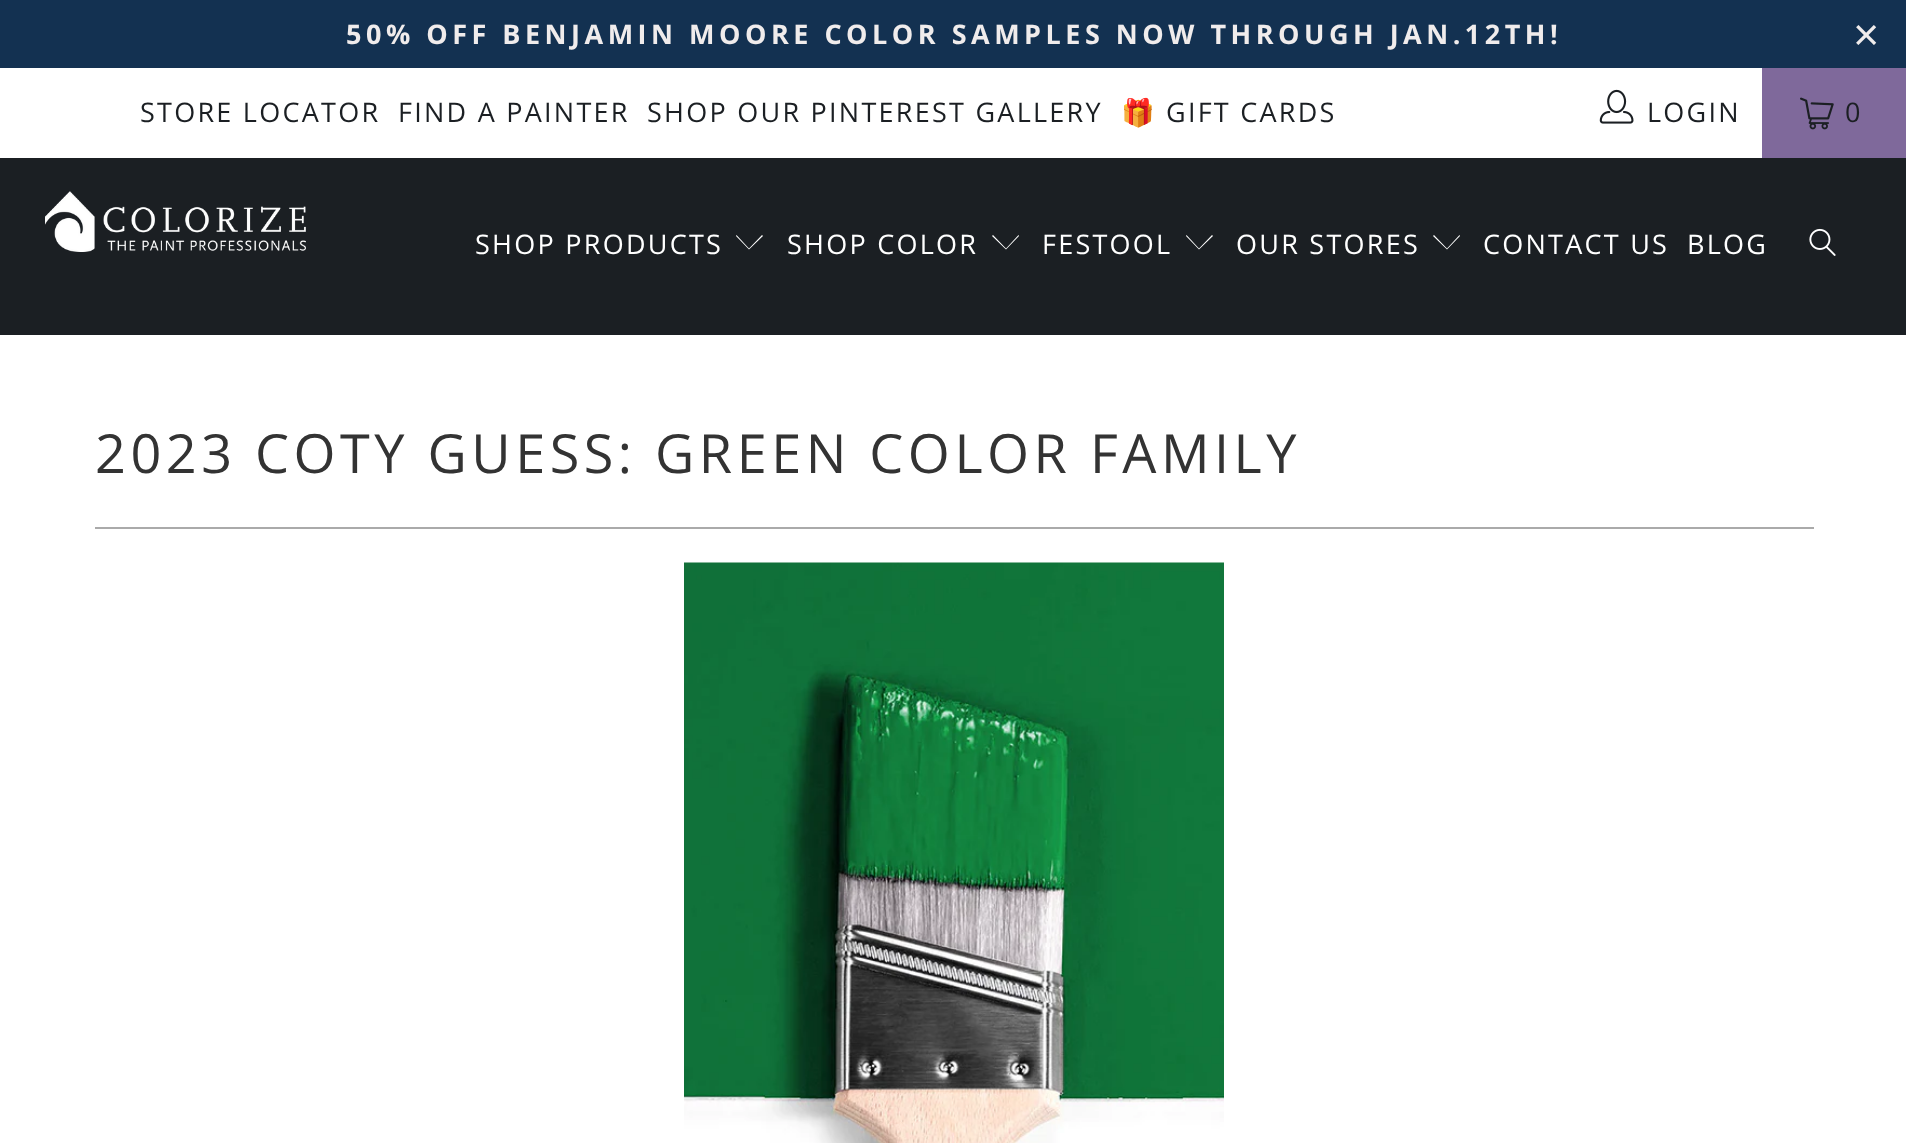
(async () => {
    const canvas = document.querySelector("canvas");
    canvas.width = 1906;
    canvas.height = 1143;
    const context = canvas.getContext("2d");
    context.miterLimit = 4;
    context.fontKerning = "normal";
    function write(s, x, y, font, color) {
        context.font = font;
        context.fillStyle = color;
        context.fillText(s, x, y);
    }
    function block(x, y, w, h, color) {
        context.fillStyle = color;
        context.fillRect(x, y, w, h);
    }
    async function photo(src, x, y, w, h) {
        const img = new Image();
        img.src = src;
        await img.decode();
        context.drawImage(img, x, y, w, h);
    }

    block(0, 0, 1906, 1143, "rgb(255, 255, 255)");
    block(0, 0, 1906, 68, "rgb(19, 49, 81)");
    context.letterSpacing = "4.5px";
    write("50% OFF BENJAMIN MOORE COLOR SAMPLES NOW THROUGH JAN.12TH!", 346, 44, "bold 27px Open Sans", "rgb(240, 236, 236)");
    write("×", 1853, 50, "45px Liberation Sans", "rgb(240, 236, 236)");
    context.letterSpacing = "2.25px";
    write("STORE LOCATOR", 140, 122, "27px Open Sans", "rgb(27, 31, 35)");
    write("FIND A PAINTER", 398, 122, "27px Open Sans", "rgb(27, 31, 35)");
    write("SHOP OUR PINTEREST GALLERY", 647, 122, "27px Open Sans", "rgb(27, 31, 35)");
    write("🎁", 1121, 122, "27px Noto Color Emoji", "rgb(27, 31, 35)");
    write("GIFT CARDS", 1166, 122, "27px Open Sans", "rgb(27, 31, 35)");
    await photo("media/1.png", 1599, 89, 35, 35);
    write("LOGIN", 1647, 122, "27px Open Sans", "rgb(27, 31, 35)");
    block(1762, 68, 144, 90, "rgb(127, 105, 155)");
    await photo("media/2.png", 1800, 97, 34, 33);
    write("0", 1845, 122, "27px Open Sans", "rgb(27, 31, 35)");
    block(0, 158, 1906, 177, "rgb(27, 31, 35)");
    await photo("media/3.png", 45, 191, 261, 61);
    write("SHOP PRODUCTS", 475, 254, "27px Open Sans", "rgb(255, 255, 255)");
    context.beginPath();
    context.moveTo(749, 249.5);
    context.lineTo(736, 236);
    context.lineTo(736.5, 235);
    context.lineTo(749, 248.5);
    context.lineTo(762, 235);
    context.lineTo(763, 236);
    context.closePath();
    context.fill();
    write("SHOP COLOR", 787, 254, "27px Open Sans", "rgb(255, 255, 255)");
    context.beginPath();
    context.moveTo(1006, 249.5);
    context.lineTo(992, 236);
    context.lineTo(993, 235);
    context.lineTo(1006, 248.5);
    context.lineTo(1018.5, 235);
    context.lineTo(1019, 236);
    context.closePath();
    context.fill();
    write("FESTOOL", 1042, 254, "27px Open Sans", "rgb(255, 255, 255)");
    context.beginPath();
    context.moveTo(1199, 249.5);
    context.lineTo(1186, 236);
    context.lineTo(1186.5, 235);
    context.lineTo(1199, 248.5);
    context.lineTo(1212, 235);
    context.lineTo(1213, 236);
    context.closePath();
    context.fill();
    write("OUR STORES", 1236, 254, "27px Open Sans", "rgb(255, 255, 255)");
    context.beginPath();
    context.moveTo(1447, 249.5);
    context.lineTo(1433, 236);
    context.lineTo(1434, 235);
    context.lineTo(1447, 248.5);
    context.lineTo(1459.5, 235);
    context.lineTo(1460, 236);
    context.closePath();
    context.fill();
    write("CONTACT US", 1483, 254, "27px Open Sans", "rgb(255, 255, 255)");
    write("BLOG", 1687, 254, "27px Open Sans", "rgb(255, 255, 255)");
    await photo("media/4.png", 1809, 228, 27, 28);
    context.letterSpacing = "4.5px";
    write("2023 COTY GUESS: GREEN COLOR FAMILY", 95, 473, "54px Open Sans", "rgb(51, 51, 51)");
    block(95, 527, 1719, 2, "rgb(170, 170, 170)");
    await photo("media/5.png", 684, 562, 540, 581);
})();
